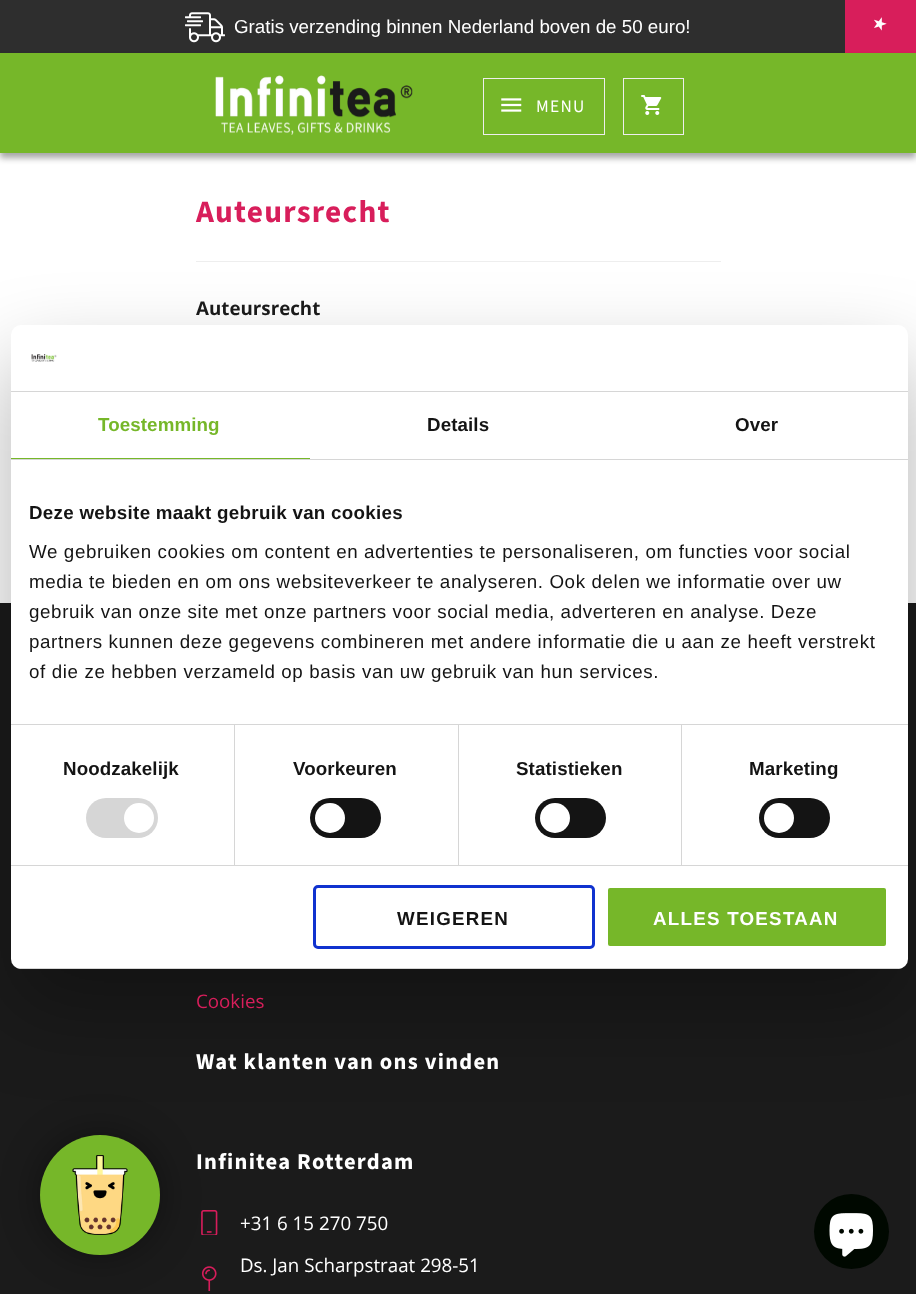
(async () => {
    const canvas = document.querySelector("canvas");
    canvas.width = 916;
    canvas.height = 1294;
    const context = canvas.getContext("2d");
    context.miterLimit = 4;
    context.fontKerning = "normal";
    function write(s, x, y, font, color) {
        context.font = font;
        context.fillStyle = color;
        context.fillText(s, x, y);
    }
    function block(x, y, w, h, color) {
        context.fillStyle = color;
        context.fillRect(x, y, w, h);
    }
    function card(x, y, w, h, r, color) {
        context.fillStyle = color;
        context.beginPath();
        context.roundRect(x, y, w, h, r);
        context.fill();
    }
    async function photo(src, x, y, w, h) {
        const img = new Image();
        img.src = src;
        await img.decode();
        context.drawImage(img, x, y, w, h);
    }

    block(0, 0, 916, 1294, "rgb(255, 255, 255)");
    block(0, 0, 845, 53, "rgb(46, 46, 46)");
    await photo("media/1.png", 185, 12, 40, 31);
    write("Gratis verzending binnen Nederland boven de 50 euro!", 234, 33, "18.75px Liberation Sans", "rgb(255, 255, 255)");
    block(845, 0, 71, 53, "rgb(216, 30, 91)");
    context.font = "17.5px DejaVu Sans";
    context.fillStyle = "rgb(255, 255, 255)";
    context.save();
    context.translate(874, 16);
    context.rotate(90 * Math.PI / 180);
    context.fillText("★", 0, 0);
    context.restore();
    block(0, 53, 916, 100, "rgb(118, 183, 41)");
    context.save();
    context.beginPath();
    context.moveTo(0, 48);
    context.lineTo(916, 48);
    context.lineTo(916, 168);
    context.lineTo(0, 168);
    context.closePath();
    context.moveTo(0, 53);
    context.lineTo(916, 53);
    context.lineTo(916, 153);
    context.lineTo(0, 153);
    context.closePath();
    context.clip("evenodd");
    context.fillStyle = "rgba(0, 0, 0, 0.35)";
    context.filter = "blur(3px)";
    context.beginPath();
    context.rect(0, 58, 916, 100);
    context.fill();
    context.filter = "none";
    context.restore();
    await photo("media/2.png", 215, 75, 198, 60);
    context.strokeStyle = "rgb(238, 238, 238)";
    context.strokeRect(483.5, 78.5, 121, 56);
    await photo("media/3.png", 501, 98, 21, 14);
    context.letterSpacing = "1.25px";
    write("MENU", 536, 112, "17.5px Source Sans Pro", "rgb(255, 255, 255)");
    context.strokeRect(623.5, 78.5, 60, 56);
    await photo("media/4.png", 641, 95, 21, 20);
    block(196, 261, 525, 1, "rgb(238, 238, 238)");
    write("Auteursrecht", 196, 222, "bold 31.25px Source Sans Pro", "rgb(216, 30, 91)");
    context.letterSpacing = "0px";
    write("Auteursrecht", 196, 315, "bold 18.75px Open Sans", "rgb(27, 27, 27)");
    block(0, 603, 916, 691, "rgb(27, 27, 27)");
    await photo("media/7.png", 201, 1210, 17, 25);
    await photo("media/8.png", 201, 1266, 16, 25);
    context.fillStyle = "rgba(0, 0, 0, 0.39)";
    context.filter = "blur(19px)";
    context.beginPath();
    context.roundRect(40, 1135, 120, 120, 60);
    context.fill();
    context.filter = "none";
    context.fillStyle = "rgb(118, 183, 41)";
    context.beginPath();
    context.arc(100, 1195, 60, 0, Math.PI * 2);
    context.fill();
    context.fillStyle = "rgba(0, 0, 0, 0.3)";
    context.filter = "blur(42.5px)";
    context.beginPath();
    context.roundRect(11, 365, 897, 644, 10);
    context.fill();
    context.filter = "none";
    card(11, 325, 897, 644, 10, "rgb(255, 255, 255)");
    block(11, 391, 897, 1, "rgb(214, 214, 214)");
    await photo("media/5.png", 31, 354, 26, 8);
    block(11, 459, 897, 1, "rgb(214, 214, 214)");
    block(11, 458, 299, 1, "rgb(118, 183, 41)");
    context.letterSpacing = "0.1px";
    write("Toestemming", 98, 431, "bold 18.75px Liberation Sans", "rgb(118, 183, 41)");
    write("Details", 427, 431, "bold 18.75px Liberation Sans", "rgb(20, 20, 20)");
    write("Over", 735, 431, "bold 18.75px Liberation Sans", "rgb(20, 20, 20)");
    block(11, 724, 897, 1, "rgb(214, 214, 214)");
    context.letterSpacing = "0.3px";
    write("Deze website maakt gebruik van cookies", 29, 519, "bold 18.75px Liberation Sans", "rgb(20, 20, 20)");
    context.letterSpacing = "0.62px";
    write("We gebruiken cookies om content en advertenties te personaliseren, om functies voor social", 29, 558, "18.75px Liberation Sans", "rgb(20, 20, 20)");
    write("media te bieden en om ons websiteverkeer te analyseren. Ook delen we informatie over uw", 29, 588, "18.75px Liberation Sans", "rgb(20, 20, 20)");
    write("gebruik van onze site met onze partners voor social media, adverteren en analyse. Deze", 29, 618, "18.75px Liberation Sans", "rgb(20, 20, 20)");
    write("partners kunnen deze gegevens combineren met andere informatie die u aan ze heeft verstrekt", 29, 648, "18.75px Liberation Sans", "rgb(20, 20, 20)");
    write("of die ze hebben verzameld op basis van uw gebruik van hun services.", 29, 678, "18.75px Liberation Sans", "rgb(20, 20, 20)");
    block(11, 865, 897, 1, "rgb(214, 214, 214)");
    block(234, 725, 1, 140, "rgb(214, 214, 214)");
    context.letterSpacing = "0.1px";
    write("Noodzakelijk", 63, 775, "bold 18.75px Liberation Sans", "rgb(20, 20, 20)");
    card(86, 798, 72, 40, 20, "rgb(214, 214, 214)");
    context.fillStyle = "rgb(255, 255, 255)";
    context.beginPath();
    context.arc(139, 818, 15, 0, Math.PI * 2);
    context.fill();
    block(458, 725, 1, 140, "rgb(214, 214, 214)");
    write("Voorkeuren", 293, 775, "bold 18.75px Liberation Sans", "rgb(20, 20, 20)");
    card(310, 798, 71, 40, 20, "rgb(20, 20, 20)");
    context.fillStyle = "rgb(255, 255, 255)";
    context.beginPath();
    context.arc(330, 818, 15, 0, Math.PI * 2);
    context.fill();
    block(681, 725, 1, 140, "rgb(214, 214, 214)");
    write("Statistieken", 516, 775, "bold 18.75px Liberation Sans", "rgb(20, 20, 20)");
    card(535, 798, 71, 40, 20, "rgb(20, 20, 20)");
    context.fillStyle = "rgb(255, 255, 255)";
    context.beginPath();
    context.arc(555, 818, 15, 0, Math.PI * 2);
    context.fill();
    write("Marketing", 749, 775, "bold 18.75px Liberation Sans", "rgb(20, 20, 20)");
    card(759, 798, 71, 40, 20, "rgb(20, 20, 20)");
    context.fillStyle = "rgb(255, 255, 255)";
    context.beginPath();
    context.arc(779, 818, 15, 0, Math.PI * 2);
    context.fill();
    context.save();
    context.beginPath();
    context.roundRect(11, 325, 897, 644, 10);
    context.clip();
    block(11, 968, 897, 1, "rgb(214, 214, 214)");
    context.restore();
    context.beginPath();
    context.roundRect(314.5, 886.5, 279, 61, 3.5);
    context.strokeStyle = "rgb(16, 50, 207)";
    context.lineWidth = 3;
    context.stroke();
    context.letterSpacing = "1.25px";
    write("WEIGEREN", 397, 925, "bold 18.75px Liberation Sans", "rgb(20, 20, 20)");
    context.fillStyle = "rgb(118, 183, 41)";
    context.beginPath();
    context.roundRect(606.5, 886.5, 281, 61, 3.5);
    context.fill();
    context.strokeStyle = "rgb(255, 255, 255)";
    context.stroke();
    write("ALLES TOESTAAN", 653, 925, "bold 18.75px Liberation Sans", "rgb(255, 255, 255)");
    await photo("media/6.png", 72, 1155, 56, 80);
    context.letterSpacing = "0px";
    write("Cookies", 196, 1008, "18.75px Open Sans", "rgb(216, 30, 91)");
    context.letterSpacing = "1.25px";
    write("Wat klanten van ons vinden", 196, 1069, "bold 22.5px Source Sans Pro", "rgb(255, 255, 255)");
    write("Infinitea Rotterdam", 196, 1169, "bold 22.5px Source Sans Pro", "rgb(255, 255, 255)");
    context.letterSpacing = "0px";
    write("+31 6 15 270 750", 240, 1230, "18.75px Open Sans", "rgb(255, 255, 255)");
    write("Ds. Jan Scharpstraat 298-51", 240, 1272, "18.75px Open Sans", "rgb(255, 255, 255)");
    context.fillStyle = "rgb(0, 8, 0)";
    context.beginPath();
    context.arc(851.5, 1231.5, 37.5, 0, Math.PI * 2);
    context.fill();
    await photo("media/9.png", 829, 1213, 44, 44);
})();
